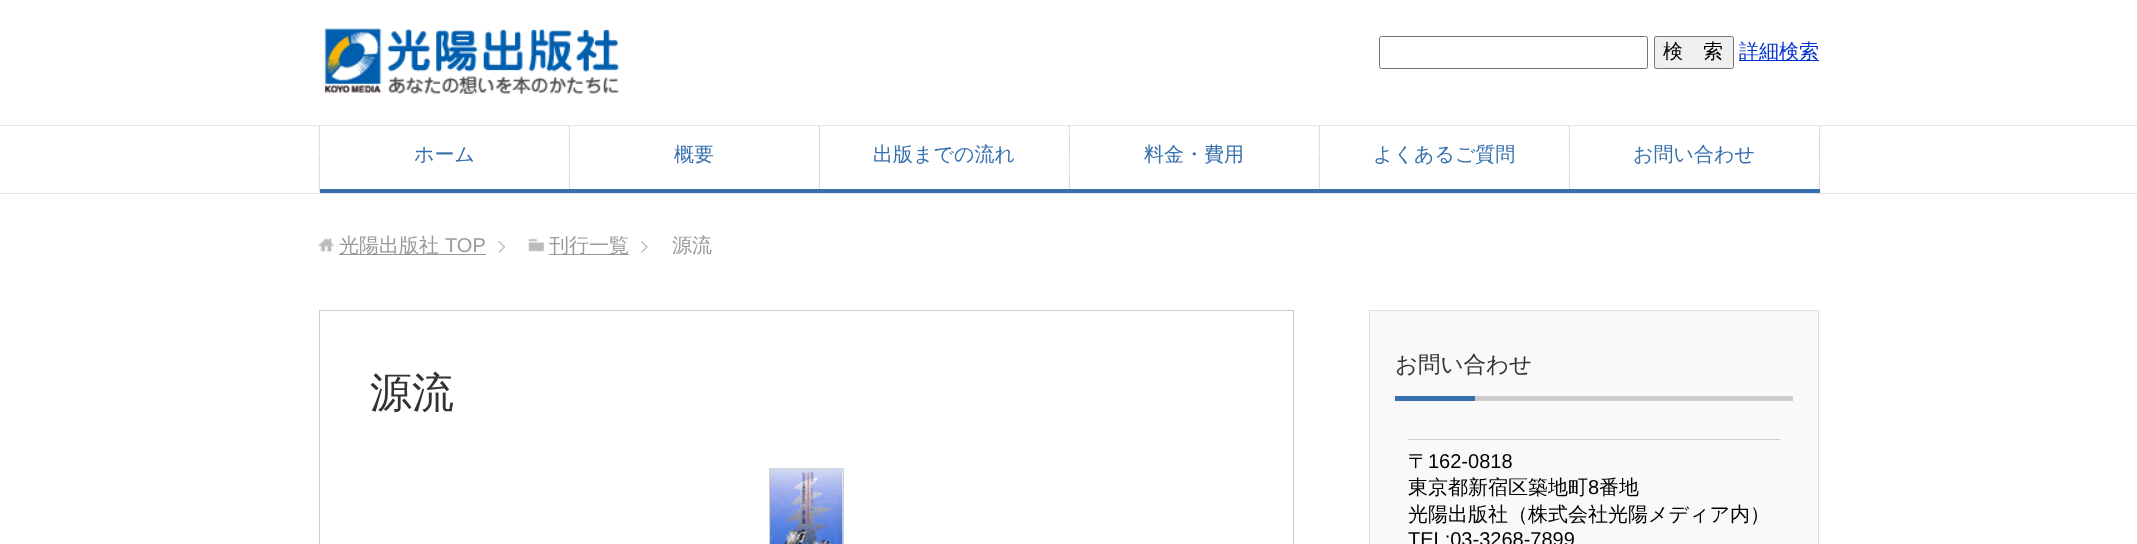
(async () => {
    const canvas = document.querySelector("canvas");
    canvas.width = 2137;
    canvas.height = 544;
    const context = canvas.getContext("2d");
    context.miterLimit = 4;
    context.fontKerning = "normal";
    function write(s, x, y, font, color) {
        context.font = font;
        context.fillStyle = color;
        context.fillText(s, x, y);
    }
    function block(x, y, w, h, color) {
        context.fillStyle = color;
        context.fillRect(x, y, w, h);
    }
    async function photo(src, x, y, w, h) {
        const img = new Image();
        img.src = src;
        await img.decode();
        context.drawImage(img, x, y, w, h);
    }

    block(0, 0, 2137, 544, "rgb(255, 255, 255)");
    await photo("media/1.png", 324, 28, 295, 67);
    context.beginPath();
    context.roundRect(1379.5, 36.5, 268, 32, 2);
    context.strokeStyle = "rgb(118, 118, 118)";
    context.stroke();
    context.fillStyle = "rgb(239, 239, 239)";
    context.beginPath();
    context.roundRect(1654.5, 36.5, 79, 32, 2);
    context.fill();
    context.stroke();
    write("検　索", 1663, 58, "500 20px WenQuanYi Zen Hei", "rgb(0, 0, 0)");
    block(1739, 60, 80, 1, "rgb(0, 51, 204)");
    write("詳細検索", 1739, 58, "500 20px WenQuanYi Zen Hei", "rgb(0, 51, 204)");
    block(0, 125, 2137, 1, "rgb(230, 230, 230)");
    block(0, 193, 2137, 1, "rgb(230, 230, 230)");
    context.beginPath();
    context.moveTo(319.5, 126);
    context.lineTo(319.5, 192.5);
    context.strokeStyle = "rgb(188, 188, 188)";
    context.lineWidth = 1.2;
    context.setLineDash([1.25, 1.25]);
    context.stroke();
    block(320, 189, 1500, 4, "rgb(55, 112, 173)");
    block(320, 126, 1, 63, "rgb(255, 255, 255)");
    context.beginPath();
    context.moveTo(569.5, 126);
    context.lineTo(569.5, 189);
    context.stroke();
    write("ホーム", 414, 161, "500 20px WenQuanYi Zen Hei", "rgb(55, 112, 173)");
    block(570, 126, 1, 63, "rgb(255, 255, 255)");
    context.beginPath();
    context.moveTo(819.5, 126);
    context.lineTo(819.5, 189);
    context.stroke();
    write("概要", 674, 161, "500 20px WenQuanYi Zen Hei", "rgb(55, 112, 173)");
    block(820, 126, 1, 63, "rgb(255, 255, 255)");
    context.beginPath();
    context.moveTo(1069.5, 126);
    context.lineTo(1069.5, 189);
    context.stroke();
    write("出版までの流れ", 873, 161, "500 20px WenQuanYi Zen Hei", "rgb(55, 112, 173)");
    block(1070, 126, 1, 63, "rgb(255, 255, 255)");
    context.beginPath();
    context.moveTo(1319.5, 126);
    context.lineTo(1319.5, 189);
    context.stroke();
    write("料金・費用", 1144, 161, "500 20px WenQuanYi Zen Hei", "rgb(55, 112, 173)");
    block(1320, 126, 1, 63, "rgb(255, 255, 255)");
    context.beginPath();
    context.moveTo(1569.5, 126);
    context.lineTo(1569.5, 189);
    context.stroke();
    write("よくあるご質問", 1373, 161, "500 20px WenQuanYi Zen Hei", "rgb(55, 112, 173)");
    block(1570, 126, 1, 63, "rgb(255, 255, 255)");
    context.beginPath();
    context.moveTo(1819.5, 126);
    context.lineTo(1819.5, 189);
    context.stroke();
    write("お問い合わせ", 1633, 161, "500 20px WenQuanYi Zen Hei", "rgb(55, 112, 173)");
    await photo("media/2.png", 498, 241, 7, 12);
    await photo("media/3.png", 318, 238, 16, 14);
    block(339, 254, 147, 1, "rgb(153, 153, 153)");
    write("光陽出版社", 339, 252, "500 20px WenQuanYi Zen Hei", "rgb(153, 153, 153)");
    write("TOP", 445, 252, "20px Liberation Sans", "rgb(153, 153, 153)");
    await photo("media/4.png", 641, 241, 7, 12);
    await photo("media/5.png", 528, 238, 16, 14);
    block(549, 254, 80, 1, "rgb(153, 153, 153)");
    write("刊行一覧", 549, 252, "500 20px WenQuanYi Zen Hei", "rgb(153, 153, 153)");
    write("源流", 672, 252, "500 20px WenQuanYi Zen Hei", "rgb(153, 153, 153)");
    context.strokeStyle = "rgb(204, 204, 204)";
    context.lineWidth = 1;
    context.setLineDash([]);
    context.strokeRect(319.5, 310.5, 974, 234);
    write("源流", 370, 407, "500 42px WenQuanYi Zen Hei", "rgb(51, 51, 51)");
    context.strokeStyle = "rgb(208, 208, 208)";
    context.strokeRect(769.5, 468.5, 74, 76);
    await photo("media/6.png", 770, 468, 73, 76);
    context.fillStyle = "rgb(249, 249, 249)";
    context.beginPath();
    context.rect(1369.5, 310.5, 449, 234);
    context.fill();
    context.strokeStyle = "rgb(221, 221, 221)";
    context.stroke();
    block(1475, 396, 318, 5, "rgb(204, 204, 204)");
    write("お問い合わせ", 1395, 372, "500 22.5px WenQuanYi Zen Hei", "rgb(51, 51, 51)");
    block(1395, 396, 80, 5, "rgb(55, 112, 173)");
    block(1408, 439, 372, 1, "rgb(204, 204, 204)");
    write("〒", 1408, 468, "500 20px WenQuanYi Zen Hei", "rgb(0, 0, 0)");
    write("162-0818", 1428, 468, "20px Liberation Sans", "rgb(0, 0, 0)");
    write("東京都新宿区築地町", 1408, 494, "500 20px WenQuanYi Zen Hei", "rgb(0, 0, 0)");
    write("8", 1588, 494, "20px Liberation Sans", "rgb(0, 0, 0)");
    write("番地", 1599, 494, "500 20px WenQuanYi Zen Hei", "rgb(0, 0, 0)");
    write("光陽出版社（株式会社光陽メディア内）", 1408, 521, "500 20px WenQuanYi Zen Hei", "rgb(0, 0, 0)");
    write("TEL:03-3268-7899", 1408, 546, "20px Liberation Sans", "rgb(0, 0, 0)");
})();
